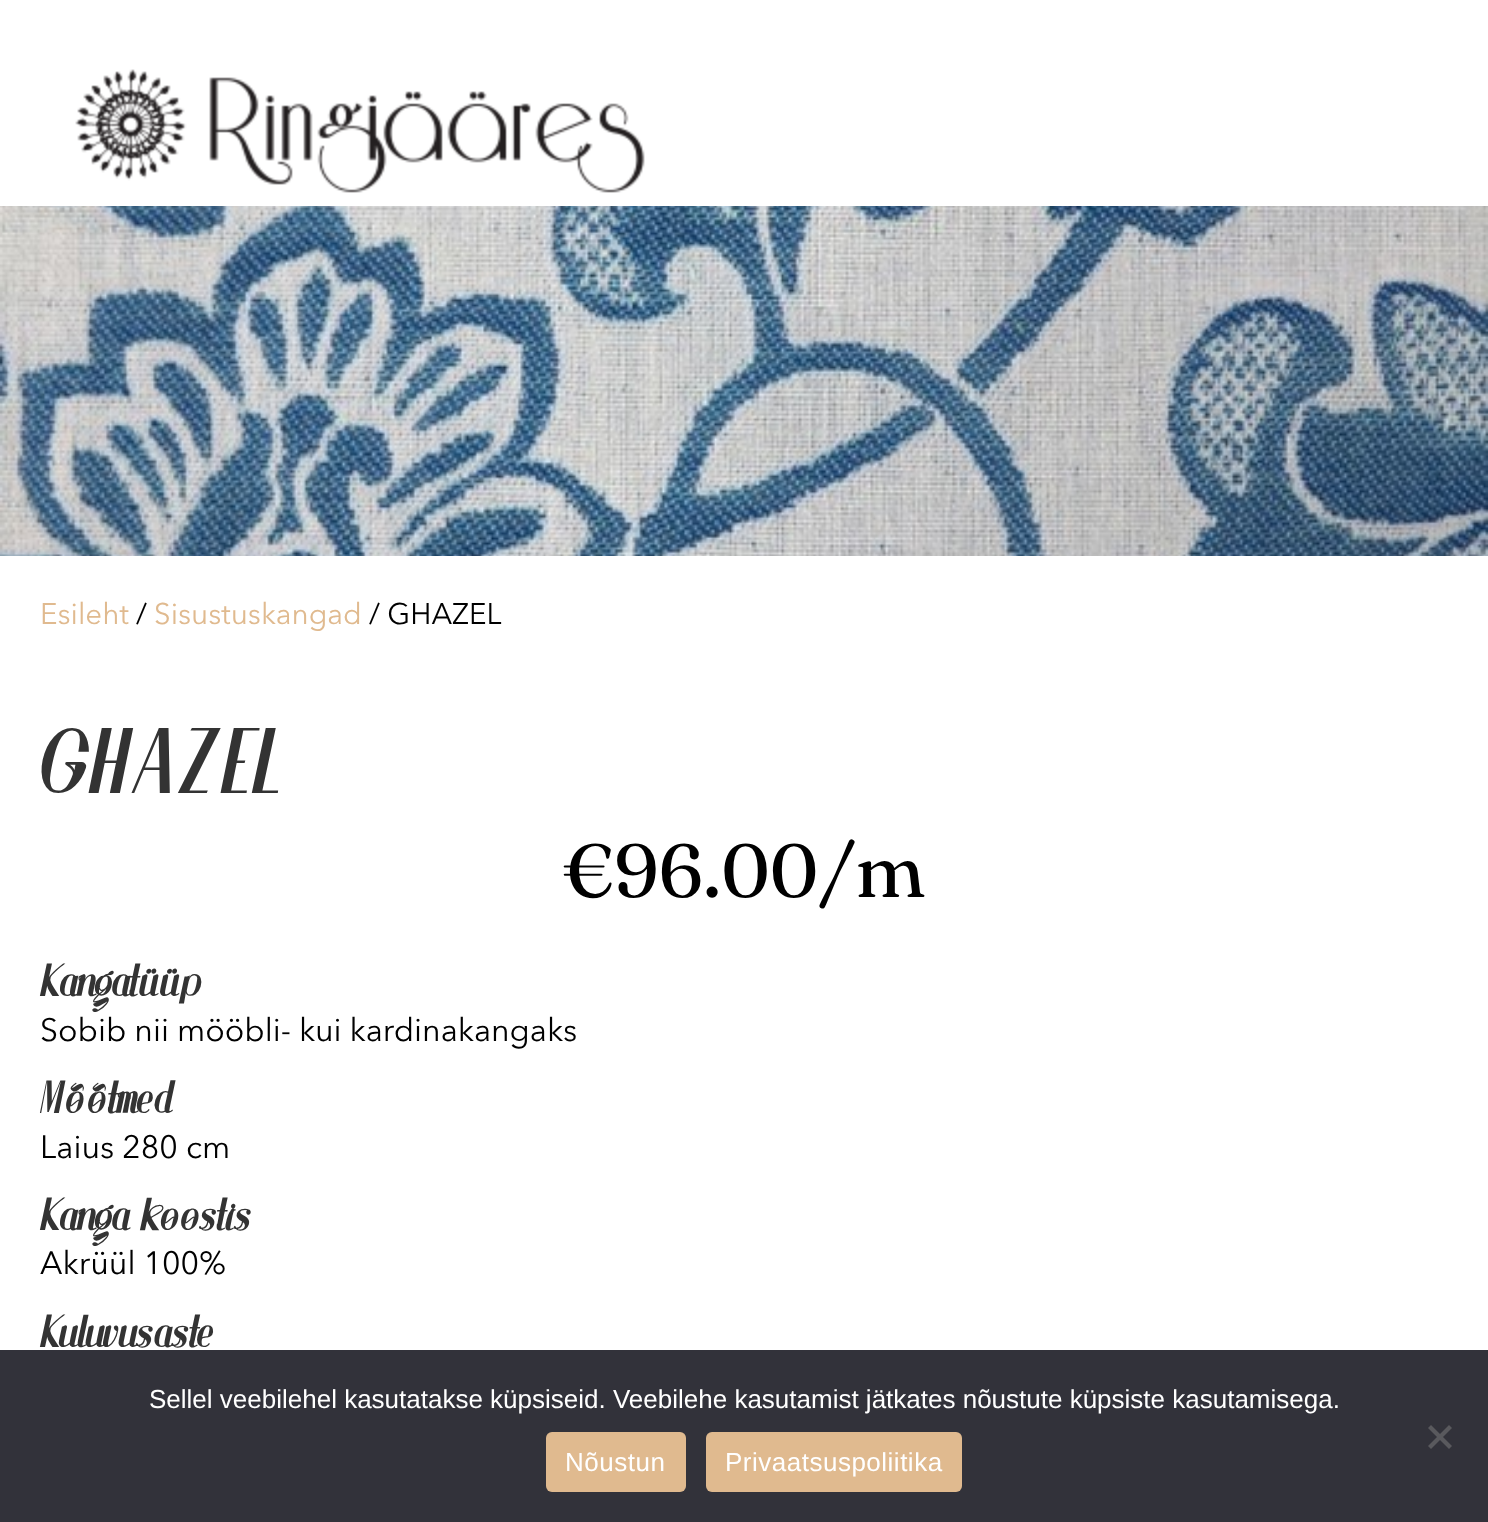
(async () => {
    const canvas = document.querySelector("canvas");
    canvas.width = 1488;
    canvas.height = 1522;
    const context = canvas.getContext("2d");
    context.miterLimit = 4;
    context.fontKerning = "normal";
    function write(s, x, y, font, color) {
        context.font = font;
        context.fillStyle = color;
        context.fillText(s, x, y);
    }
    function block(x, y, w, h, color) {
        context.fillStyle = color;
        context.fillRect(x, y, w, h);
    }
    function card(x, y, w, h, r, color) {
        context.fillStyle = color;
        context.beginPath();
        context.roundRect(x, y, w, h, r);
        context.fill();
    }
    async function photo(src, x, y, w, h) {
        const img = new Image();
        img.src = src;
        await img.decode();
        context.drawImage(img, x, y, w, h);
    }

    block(0, 0, 1488, 1522, "rgb(255, 255, 255)");
    await photo("media/1.png", 75, 69, 570, 124);
    await photo("media/2.png", 0, 206, 1488, 350);
    write("Esileht", 40, 624, "29.5px Avenir Next", "rgb(224, 186, 143)");
    write("/", 136, 624, "29.5px Avenir Next", "rgb(0, 0, 0)");
    write("Sisustuskangad", 154, 624, "29.5px Avenir Next", "rgb(224, 186, 143)");
    write("/ GHAZEL", 369, 624, "29.5px Avenir Next", "rgb(0, 0, 0)");
    context.letterSpacing = "4px";
    write("GHAZEL", 40, 793, "bold 72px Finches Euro", "rgb(51, 51, 51)");
    context.letterSpacing = "0px";
    write("€96.00/m", 562, 897, "75px Fraunces", "rgb(0, 0, 0)");
    context.letterSpacing = "2px";
    write("Kangatüüp", 40, 996, "bold 36px Finches Euro", "rgb(51, 51, 51)");
    context.letterSpacing = "0px";
    write("Sobib nii mööbli- kui kardinakangaks", 40, 1041, "32px Avenir Next", "rgb(0, 0, 0)");
    context.letterSpacing = "2px";
    write("Mõõtmed", 40, 1113, "bold 36px Finches Euro", "rgb(51, 51, 51)");
    context.letterSpacing = "0px";
    write("Laius 280 cm", 40, 1158, "32px Avenir Next", "rgb(0, 0, 0)");
    context.letterSpacing = "2px";
    write("Kanga koostis", 40, 1230, "bold 36px Finches Euro", "rgb(51, 51, 51)");
    context.letterSpacing = "0px";
    write("Akrüül 100%", 40, 1274, "32px Avenir Next", "rgb(0, 0, 0)");
    context.letterSpacing = "2px";
    write("Kuluvusaste", 40, 1347, "bold 36px Finches Euro", "rgb(51, 51, 51)");
    block(0, 1350, 1488, 172, "rgb(50, 50, 58)");
    context.letterSpacing = "0px";
    write("Sellel veebilehel kasutatakse küpsiseid. Veebilehe kasutamist jätkates nõustute küpsiste kasutamisega.", 149, 1408, "26px Liberation Sans", "rgb(255, 255, 255)");
    context.fillStyle = "rgb(89, 89, 93)";
    context.beginPath();
    context.moveTo(1449, 1425);
    context.lineTo(1452, 1428);
    context.lineTo(1431, 1449);
    context.lineTo(1428, 1446);
    context.closePath();
    context.fill();
    context.beginPath();
    context.moveTo(1428, 1428);
    context.lineTo(1431, 1425);
    context.lineTo(1452, 1446);
    context.lineTo(1449, 1449);
    context.closePath();
    context.fill();
    card(546, 1432, 140, 60, 6, "rgb(224, 186, 143)");
    context.letterSpacing = "0.5px";
    write("Nõustun", 565, 1471, "26px Liberation Sans", "rgb(255, 255, 255)");
    card(706, 1432, 256, 60, 6, "rgb(224, 186, 143)");
    write("Privaatsuspoliitika", 725, 1471, "26px Liberation Sans", "rgb(255, 255, 255)");
})();
